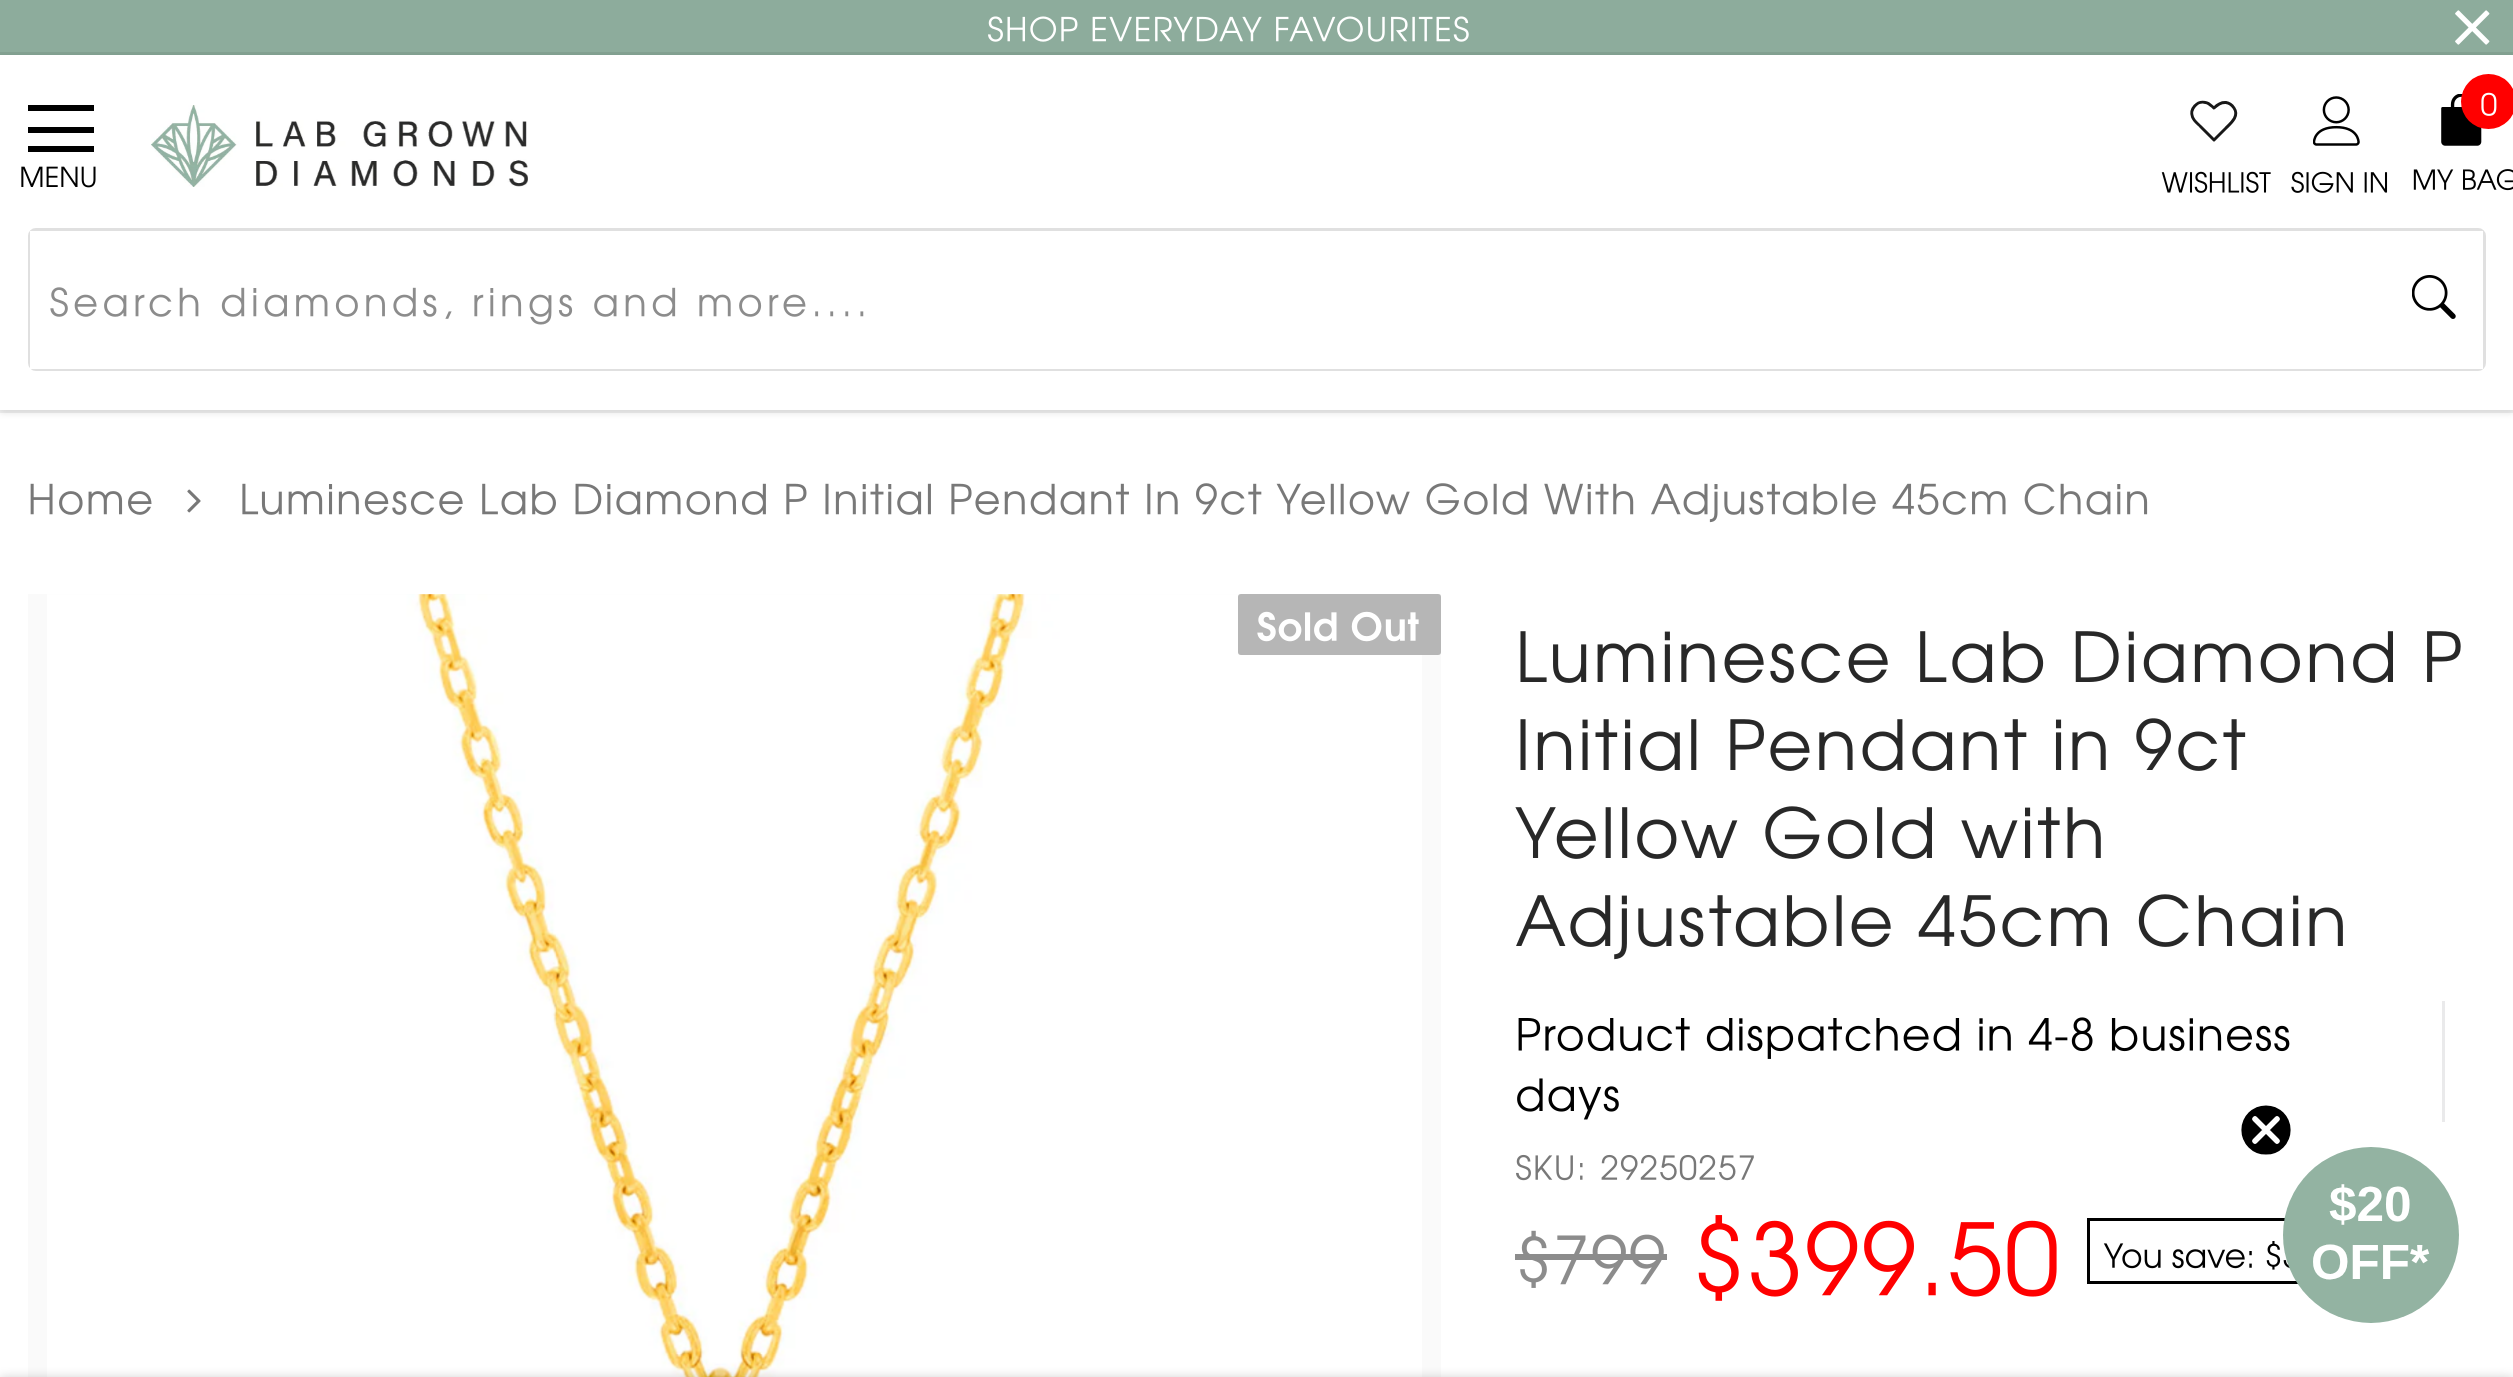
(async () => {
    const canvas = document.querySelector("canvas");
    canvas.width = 2513;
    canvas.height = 1377;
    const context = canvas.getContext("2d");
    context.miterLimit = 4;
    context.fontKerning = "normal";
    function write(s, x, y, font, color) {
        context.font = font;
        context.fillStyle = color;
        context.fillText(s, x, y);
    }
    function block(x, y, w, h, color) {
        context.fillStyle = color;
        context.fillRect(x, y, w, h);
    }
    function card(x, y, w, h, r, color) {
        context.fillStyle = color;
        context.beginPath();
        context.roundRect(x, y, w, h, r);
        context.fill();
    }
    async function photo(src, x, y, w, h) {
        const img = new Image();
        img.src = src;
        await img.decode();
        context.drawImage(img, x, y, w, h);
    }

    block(0, 0, 2513, 1377, "rgb(255, 255, 255)");
    block(0, 0, 2513, 55, "rgb(141, 172, 156)");
    await photo("media/1.png", 988, 16, 481, 26);
    await photo("media/2.png", 2455, 10, 35, 35);
    context.fillStyle = "rgba(0, 0, 0, 0.1)";
    context.filter = "blur(3px)";
    context.beginPath();
    context.rect(0, 58, 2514, 355);
    context.fill();
    context.filter = "none";
    context.strokeStyle = "rgba(0, 0, 0, 0.06)";
    context.lineWidth = 3;
    context.strokeRect(-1.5, 53.5, 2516, 358);
    block(0, 55, 2513, 355, "rgb(255, 255, 255)");
    block(28, 105, 66, 6, "rgb(0, 0, 0)");
    block(28, 127, 66, 6, "rgb(0, 0, 0)");
    block(28, 146, 66, 6, "rgb(0, 0, 0)");
    await photo("media/3.png", 21, 166, 75, 22);
    await photo("media/4.png", 151, 105, 377, 82);
    context.beginPath();
    context.moveTo(2214, 108);
    context.bezierCurveTo(2217, 105, 2220.5, 102, 2226, 102.5);
    context.bezierCurveTo(2229, 103, 2232, 105, 2234, 108);
    context.bezierCurveTo(2239.5, 116, 2231, 123, 2226, 128);
    context.lineTo(2214, 140);
    context.lineTo(2200.5, 126.5);
    context.bezierCurveTo(2197.5, 123.5, 2194, 121, 2192.5, 117);
    context.bezierCurveTo(2189.5, 109, 2197, 100.5, 2205.5, 102.5);
    context.bezierCurveTo(2209, 103, 2211.5, 106, 2214, 108);
    context.closePath();
    context.strokeStyle = "rgb(24, 24, 24)";
    context.lineWidth = 2.9;
    context.lineCap = "round";
    context.lineJoin = "round";
    context.stroke();
    await photo("media/5.png", 2161, 171, 110, 22);
    await photo("media/6.png", 2313, 96, 47, 50);
    await photo("media/7.png", 2291, 171, 97, 22);
    await photo("media/9.png", 2441, 94, 41, 52);
    context.fillStyle = "rgb(255, 0, 0)";
    context.beginPath();
    context.arc(2488.5, 101.5, 27.5, 0, Math.PI * 2);
    context.fill();
    await photo("media/8.png", 2481, 92, 16, 24);
    await photo("media/10.png", 2413, 169, 100, 22);
    context.beginPath();
    context.roundRect(29.5, 229.5, 2455, 140, 6.5);
    context.strokeStyle = "rgb(224, 224, 224)";
    context.lineWidth = 3;
    context.lineJoin = "miter";
    context.stroke();
    block(30, 231, 2453, 138, "rgb(255, 255, 255)");
    await photo("media/11.png", 50, 287, 814, 38);
    await photo("media/12.png", 2412, 275, 44, 44);
    await photo("media/13.png", 30, 483, 122, 32);
    await photo("media/14.png", 187, 489, 14, 24);
    await photo("media/15.png", 242, 483, 1906, 40);
    block(28, 594, 1413, 783, "rgb(250, 250, 250)");
    await photo("media/16.png", 47, 594, 1375, 783);
    card(1238, 594, 203, 61, 3, "rgb(182, 182, 182)");
    await photo("media/17.png", 1257, 611, 162, 31);
    await photo("media/18.png", 1520, 631, 941, 52);
    await photo("media/19.png", 1520, 718, 726, 53);
    await photo("media/20.png", 1515, 806, 586, 53);
    await photo("media/21.png", 1516, 894, 827, 66);
    block(2442, 1001, 3, 121, "rgb(234, 234, 235)");
    await photo("media/22.png", 1518, 1017, 772, 42);
    await photo("media/23.png", 1517, 1078, 102, 42);
    await photo("media/24.png", 1516, 1154, 67, 27);
    await photo("media/25.png", 1601, 1154, 153, 27);
    await photo("media/26.png", 1520, 1230, 144, 58);
    block(1515, 1254, 152, 6, "rgb(140, 140, 140)");
    await photo("media/27.png", 1698, 1215, 359, 86);
    context.strokeStyle = "rgb(0, 0, 0)";
    context.strokeRect(2088.5, 1219.5, 311, 63);
    await photo("media/28.png", 2103, 1241, 187, 29);
    context.fillStyle = "rgba(0, 0, 0, 0.2)";
    context.filter = "blur(5.5px)";
    context.beginPath();
    context.rect(0, 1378, 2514, 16);
    context.fill();
    context.filter = "none";
    context.fillStyle = "rgb(147, 179, 162)";
    context.beginPath();
    context.arc(2371, 1235, 88, 0, Math.PI * 2);
    context.fill();
    context.fillStyle = "rgb(0, 0, 0)";
    context.beginPath();
    context.arc(2266, 1130, 26, 0, Math.PI * 2);
    context.fill();
    context.save();
    context.beginPath();
    context.rect(2239, 1103, 55, 55);
    context.clip();
    context.beginPath();
    context.arc(2266, 1130, 26, 0, Math.PI * 2);
    context.strokeStyle = "rgb(255, 255, 255)";
    context.lineWidth = 2.8;
    context.stroke();
    context.restore();
    context.beginPath();
    context.moveTo(2255, 1119);
    context.lineTo(2277, 1141);
    context.moveTo(2255, 1141);
    context.lineTo(2277, 1119);
    context.closePath();
    context.strokeStyle = "rgb(255, 255, 255)";
    context.lineWidth = 5.5;
    context.lineJoin = "round";
    context.stroke();
    write("$20", 2329, 1221, "bold 49.5px Liberation Sans", "rgb(255, 255, 255)");
    write("OFF*", 2311, 1279, "bold 49.5px Liberation Sans", "rgb(255, 255, 255)");
})();
